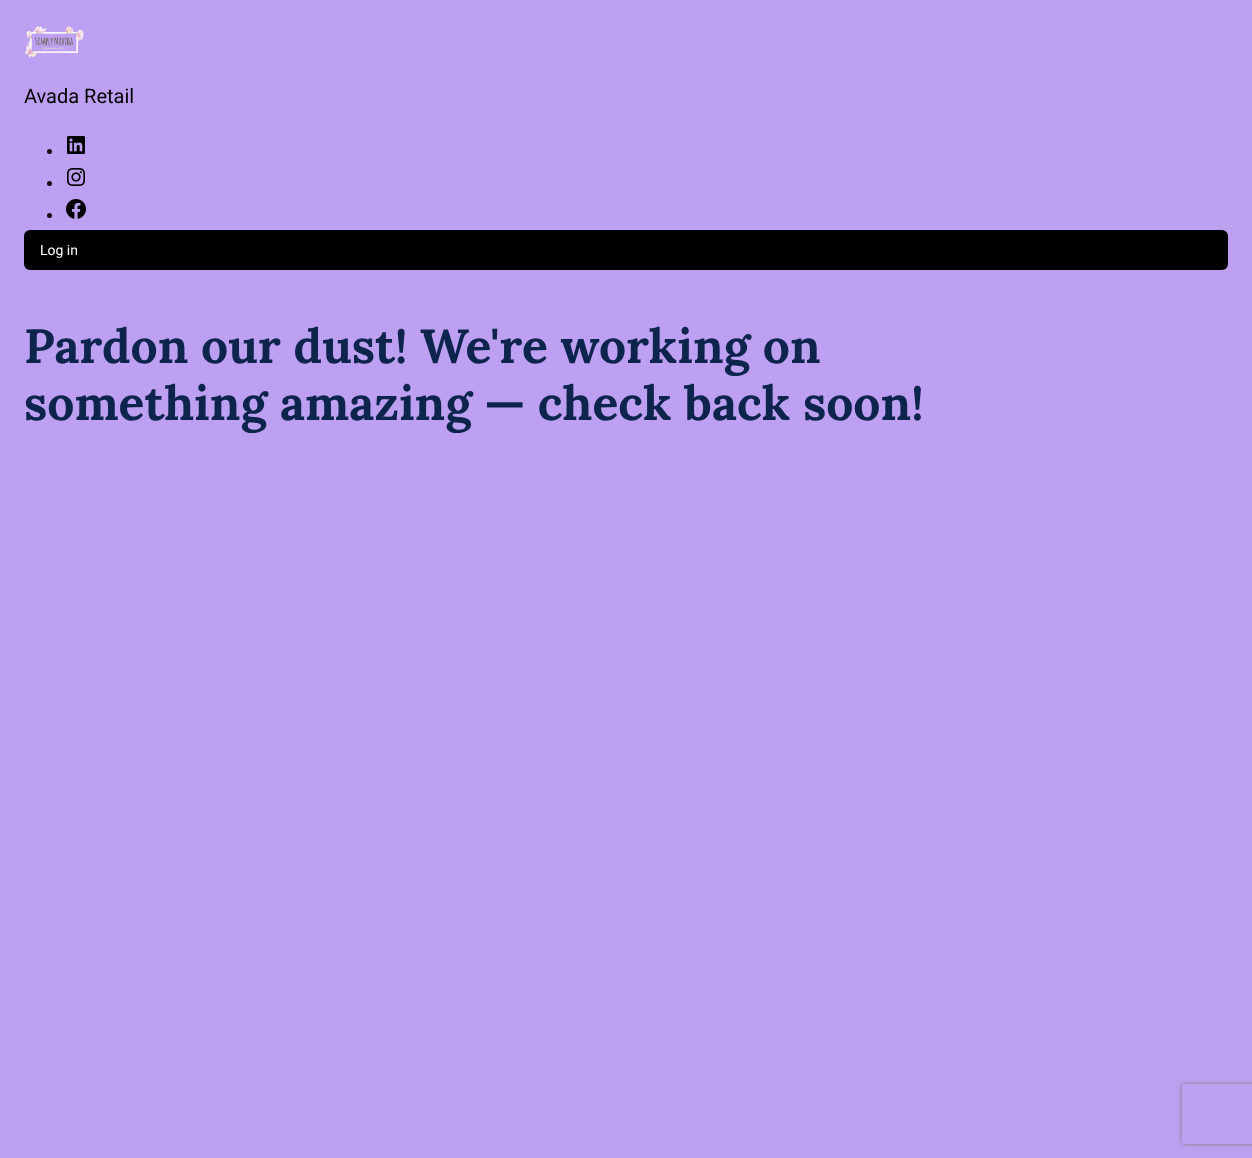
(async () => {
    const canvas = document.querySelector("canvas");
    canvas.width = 1252;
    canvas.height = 1158;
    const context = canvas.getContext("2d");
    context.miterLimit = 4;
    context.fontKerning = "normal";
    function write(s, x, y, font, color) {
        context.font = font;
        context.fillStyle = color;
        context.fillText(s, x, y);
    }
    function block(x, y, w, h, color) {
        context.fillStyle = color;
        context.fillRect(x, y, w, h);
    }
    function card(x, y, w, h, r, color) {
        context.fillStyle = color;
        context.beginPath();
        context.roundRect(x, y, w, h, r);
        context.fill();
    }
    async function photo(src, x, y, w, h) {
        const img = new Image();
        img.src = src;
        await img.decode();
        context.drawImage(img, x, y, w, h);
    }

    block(0, 0, 1252, 1158, "rgb(190, 160, 242)");
    await photo("media/1.png", 25, 26, 59, 32);
    write("Avada Retail", 24, 103, "20px Roboto", "rgb(0, 0, 0)");
    context.fillStyle = "rgb(17, 17, 17)";
    context.beginPath();
    context.arc(49.5, 151.5, 2.5, 0, Math.PI * 2);
    context.fill();
    await photo("media/2.png", 67, 136, 18, 18);
    context.beginPath();
    context.arc(49.5, 183.5, 2.5, 0, Math.PI * 2);
    context.fill();
    await photo("media/3.png", 67, 168, 18, 18);
    context.beginPath();
    context.arc(49.5, 215.5, 2.5, 0, Math.PI * 2);
    context.fill();
    await photo("media/4.png", 66, 199, 20, 20);
    card(24, 230, 1204, 40, 6, "rgb(0, 0, 0)");
    write("Log in", 40, 255, "14px Roboto", "rgb(255, 255, 255)");
    write("Pardon our dust! We're working on", 24, 363, "bold 48px Lora", "rgb(13, 36, 76)");
    write("something amazing — check back soon!", 24, 420, "bold 48px Lora", "rgb(13, 36, 76)");
    context.save();
    context.beginPath();
    context.moveTo(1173, 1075);
    context.lineTo(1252, 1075);
    context.lineTo(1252, 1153);
    context.lineTo(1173, 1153);
    context.closePath();
    context.moveTo(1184, 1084);
    context.lineTo(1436, 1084);
    context.bezierCurveTo(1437, 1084, 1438, 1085, 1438, 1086);
    context.lineTo(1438, 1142);
    context.bezierCurveTo(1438, 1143, 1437, 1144, 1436, 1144);
    context.lineTo(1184, 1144);
    context.bezierCurveTo(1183, 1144, 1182, 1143, 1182, 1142);
    context.lineTo(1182, 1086);
    context.bezierCurveTo(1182, 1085, 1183, 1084, 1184, 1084);
    context.closePath();
    context.clip("evenodd");
    context.fillStyle = "rgb(128, 128, 128)";
    context.filter = "blur(2.5px)";
    context.beginPath();
    context.roundRect(1182, 1084, 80, 60, 2);
    context.fill();
    context.filter = "none";
    context.restore();
})();
